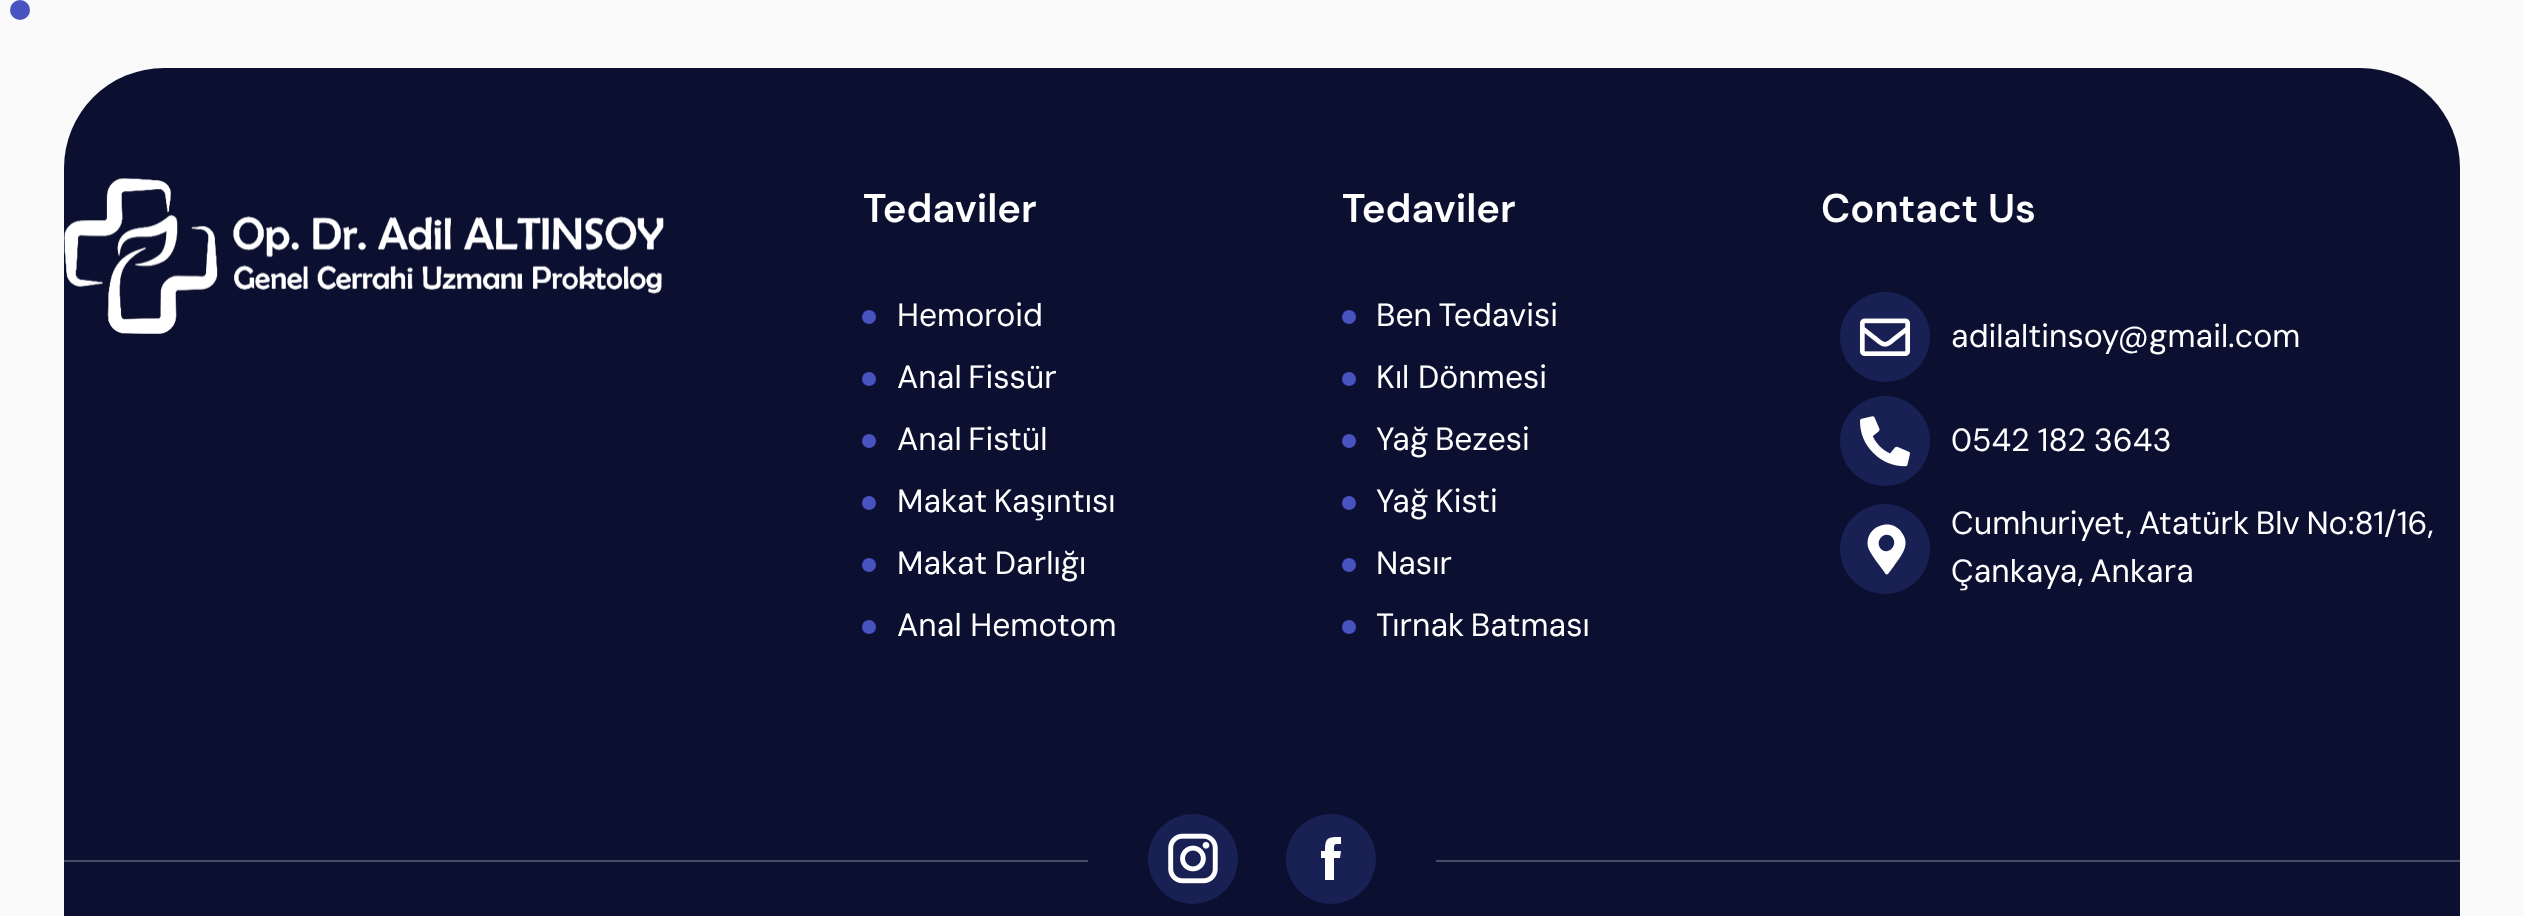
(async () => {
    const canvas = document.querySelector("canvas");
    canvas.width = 2524;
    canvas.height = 916;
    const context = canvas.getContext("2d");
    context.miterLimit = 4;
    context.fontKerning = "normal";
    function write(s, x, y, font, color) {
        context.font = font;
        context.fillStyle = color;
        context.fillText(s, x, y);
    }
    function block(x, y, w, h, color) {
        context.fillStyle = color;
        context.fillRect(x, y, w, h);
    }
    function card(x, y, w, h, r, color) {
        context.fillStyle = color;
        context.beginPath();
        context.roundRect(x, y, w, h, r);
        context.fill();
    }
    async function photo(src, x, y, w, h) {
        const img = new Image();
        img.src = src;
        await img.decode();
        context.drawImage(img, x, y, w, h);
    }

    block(0, 0, 2524, 916, "rgb(250, 250, 250)");
    context.fillStyle = "rgb(71, 83, 191)";
    context.beginPath();
    context.arc(20, 10, 10, 0, Math.PI * 2);
    context.fill();
    card(64, 68, 2396, 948, 100, "rgb(11, 16, 48)");
    await photo("media/1.png", 64, 178, 600, 156);
    write("Tedaviler", 863, 222, "600 40px DM Sans", "rgb(255, 255, 255)");
    context.fillStyle = "rgb(71, 83, 191)";
    context.beginPath();
    context.arc(869, 317, 7, 0, Math.PI * 2);
    context.fill();
    write("Hemoroid", 897, 326, "32px DM Sans", "rgb(255, 255, 255)");
    context.fillStyle = "rgb(71, 83, 191)";
    context.beginPath();
    context.arc(869, 379, 7, 0, Math.PI * 2);
    context.fill();
    context.wordSpacing = "-2px";
    write("Anal Fissür", 897, 388, "32px DM Sans", "rgb(255, 255, 255)");
    context.fillStyle = "rgb(71, 83, 191)";
    context.beginPath();
    context.arc(869, 441, 7, 0, Math.PI * 2);
    context.fill();
    write("Anal Fistül", 897, 450, "32px DM Sans", "rgb(255, 255, 255)");
    context.fillStyle = "rgb(71, 83, 191)";
    context.beginPath();
    context.arc(869, 503, 7, 0, Math.PI * 2);
    context.fill();
    write("Makat Kaşıntısı", 897, 512, "32px DM Sans", "rgb(255, 255, 255)");
    context.fillStyle = "rgb(71, 83, 191)";
    context.beginPath();
    context.arc(869, 565, 7, 0, Math.PI * 2);
    context.fill();
    context.wordSpacing = "-1px";
    write("Makat Darlığı", 897, 574, "32px DM Sans", "rgb(255, 255, 255)");
    context.fillStyle = "rgb(71, 83, 191)";
    context.beginPath();
    context.arc(869, 627, 7, 0, Math.PI * 2);
    context.fill();
    context.wordSpacing = "0px";
    write("Anal Hemotom", 897, 636, "32px DM Sans", "rgb(255, 255, 255)");
    write("Tedaviler", 1342, 222, "600 40px DM Sans", "rgb(255, 255, 255)");
    context.fillStyle = "rgb(71, 83, 191)";
    context.beginPath();
    context.arc(1349, 317, 7, 0, Math.PI * 2);
    context.fill();
    context.wordSpacing = "-2px";
    write("Ben Tedavisi", 1376, 326, "32px DM Sans", "rgb(255, 255, 255)");
    context.fillStyle = "rgb(71, 83, 191)";
    context.beginPath();
    context.arc(1349, 379, 7, 0, Math.PI * 2);
    context.fill();
    context.wordSpacing = "0px";
    write("Kıl Dönmesi", 1376, 388, "32px DM Sans", "rgb(255, 255, 255)");
    context.fillStyle = "rgb(71, 83, 191)";
    context.beginPath();
    context.arc(1349, 441, 7, 0, Math.PI * 2);
    context.fill();
    context.wordSpacing = "-2px";
    write("Yağ Bezesi", 1376, 450, "32px DM Sans", "rgb(255, 255, 255)");
    context.fillStyle = "rgb(71, 83, 191)";
    context.beginPath();
    context.arc(1349, 503, 7, 0, Math.PI * 2);
    context.fill();
    write("Yağ Kisti", 1376, 512, "32px DM Sans", "rgb(255, 255, 255)");
    context.fillStyle = "rgb(71, 83, 191)";
    context.beginPath();
    context.arc(1349, 565, 7, 0, Math.PI * 2);
    context.fill();
    context.wordSpacing = "0px";
    write("Nasır", 1376, 574, "32px DM Sans", "rgb(255, 255, 255)");
    context.fillStyle = "rgb(71, 83, 191)";
    context.beginPath();
    context.arc(1349, 627, 7, 0, Math.PI * 2);
    context.fill();
    context.wordSpacing = "-2px";
    write("Tırnak Batması", 1376, 636, "32px DM Sans", "rgb(255, 255, 255)");
    context.wordSpacing = "0px";
    write("Contact Us", 1821, 222, "600 40px DM Sans", "rgb(255, 255, 255)");
    context.fillStyle = "rgb(25, 32, 83)";
    context.beginPath();
    context.arc(1885, 337, 45, 0, Math.PI * 2);
    context.fill();
    await photo("media/2.png", 1860, 318, 50, 38);
    write("adilaltinsoy@gmail.com", 1951, 347, "32px DM Sans", "rgb(255, 255, 255)");
    context.fillStyle = "rgb(25, 32, 83)";
    context.beginPath();
    context.arc(1885, 441, 45, 0, Math.PI * 2);
    context.fill();
    await photo("media/3.png", 1860, 416, 50, 51);
    context.wordSpacing = "-1px";
    write("0542 182 3643", 1951, 451, "32px DM Sans", "rgb(255, 255, 255)");
    context.fillStyle = "rgb(25, 32, 83)";
    context.beginPath();
    context.arc(1885, 549, 45, 0, Math.PI * 2);
    context.fill();
    context.fillStyle = "rgb(255, 255, 255)";
    context.beginPath();
    context.moveTo(1885, 573);
    context.bezierCurveTo(1881, 567, 1870, 554, 1868, 547);
    context.bezierCurveTo(1864, 527, 1891, 516, 1902, 533);
    context.bezierCurveTo(1911, 545, 1901, 556, 1894, 566);
    context.lineTo(1888, 574);
    context.bezierCurveTo(1887, 575, 1885, 574, 1885, 573);
    context.closePath();
    context.moveTo(1881, 549);
    context.bezierCurveTo(1888, 556, 1899, 545, 1892, 537);
    context.bezierCurveTo(1885, 530, 1874, 541, 1881, 549);
    context.closePath();
    context.fill();
    context.wordSpacing = "-2px";
    write("Cumhuriyet, Atatürk Blv No:81/16,", 1951, 534, "32px DM Sans", "rgb(255, 255, 255)");
    write("Çankaya, Ankara", 1951, 582, "32px DM Sans", "rgb(255, 255, 255)");
    block(64, 860, 2396, 2, "rgb(72, 76, 100)");
    block(1088, 860, 348, 2, "rgb(11, 16, 48)");
    context.fillStyle = "rgb(25, 32, 83)";
    context.beginPath();
    context.arc(1193, 859, 45, 0, Math.PI * 2);
    context.fill();
    await photo("media/4.png", 1168, 833, 50, 51);
    context.beginPath();
    context.arc(1331, 859, 45, 0, Math.PI * 2);
    context.fill();
    context.fillStyle = "rgb(255, 255, 255)";
    context.beginPath();
    context.moveTo(1341, 851);
    context.lineTo(1334, 851);
    context.bezierCurveTo(1334, 843, 1334, 844, 1341, 844);
    context.lineTo(1341, 837);
    context.bezierCurveTo(1328, 837, 1325, 837, 1325, 851);
    context.lineTo(1321, 851);
    context.lineTo(1321, 858);
    context.lineTo(1325, 858);
    context.lineTo(1325, 880);
    context.lineTo(1334, 880);
    context.lineTo(1334, 858);
    context.lineTo(1340, 858);
    context.closePath();
    context.fill();
})();
